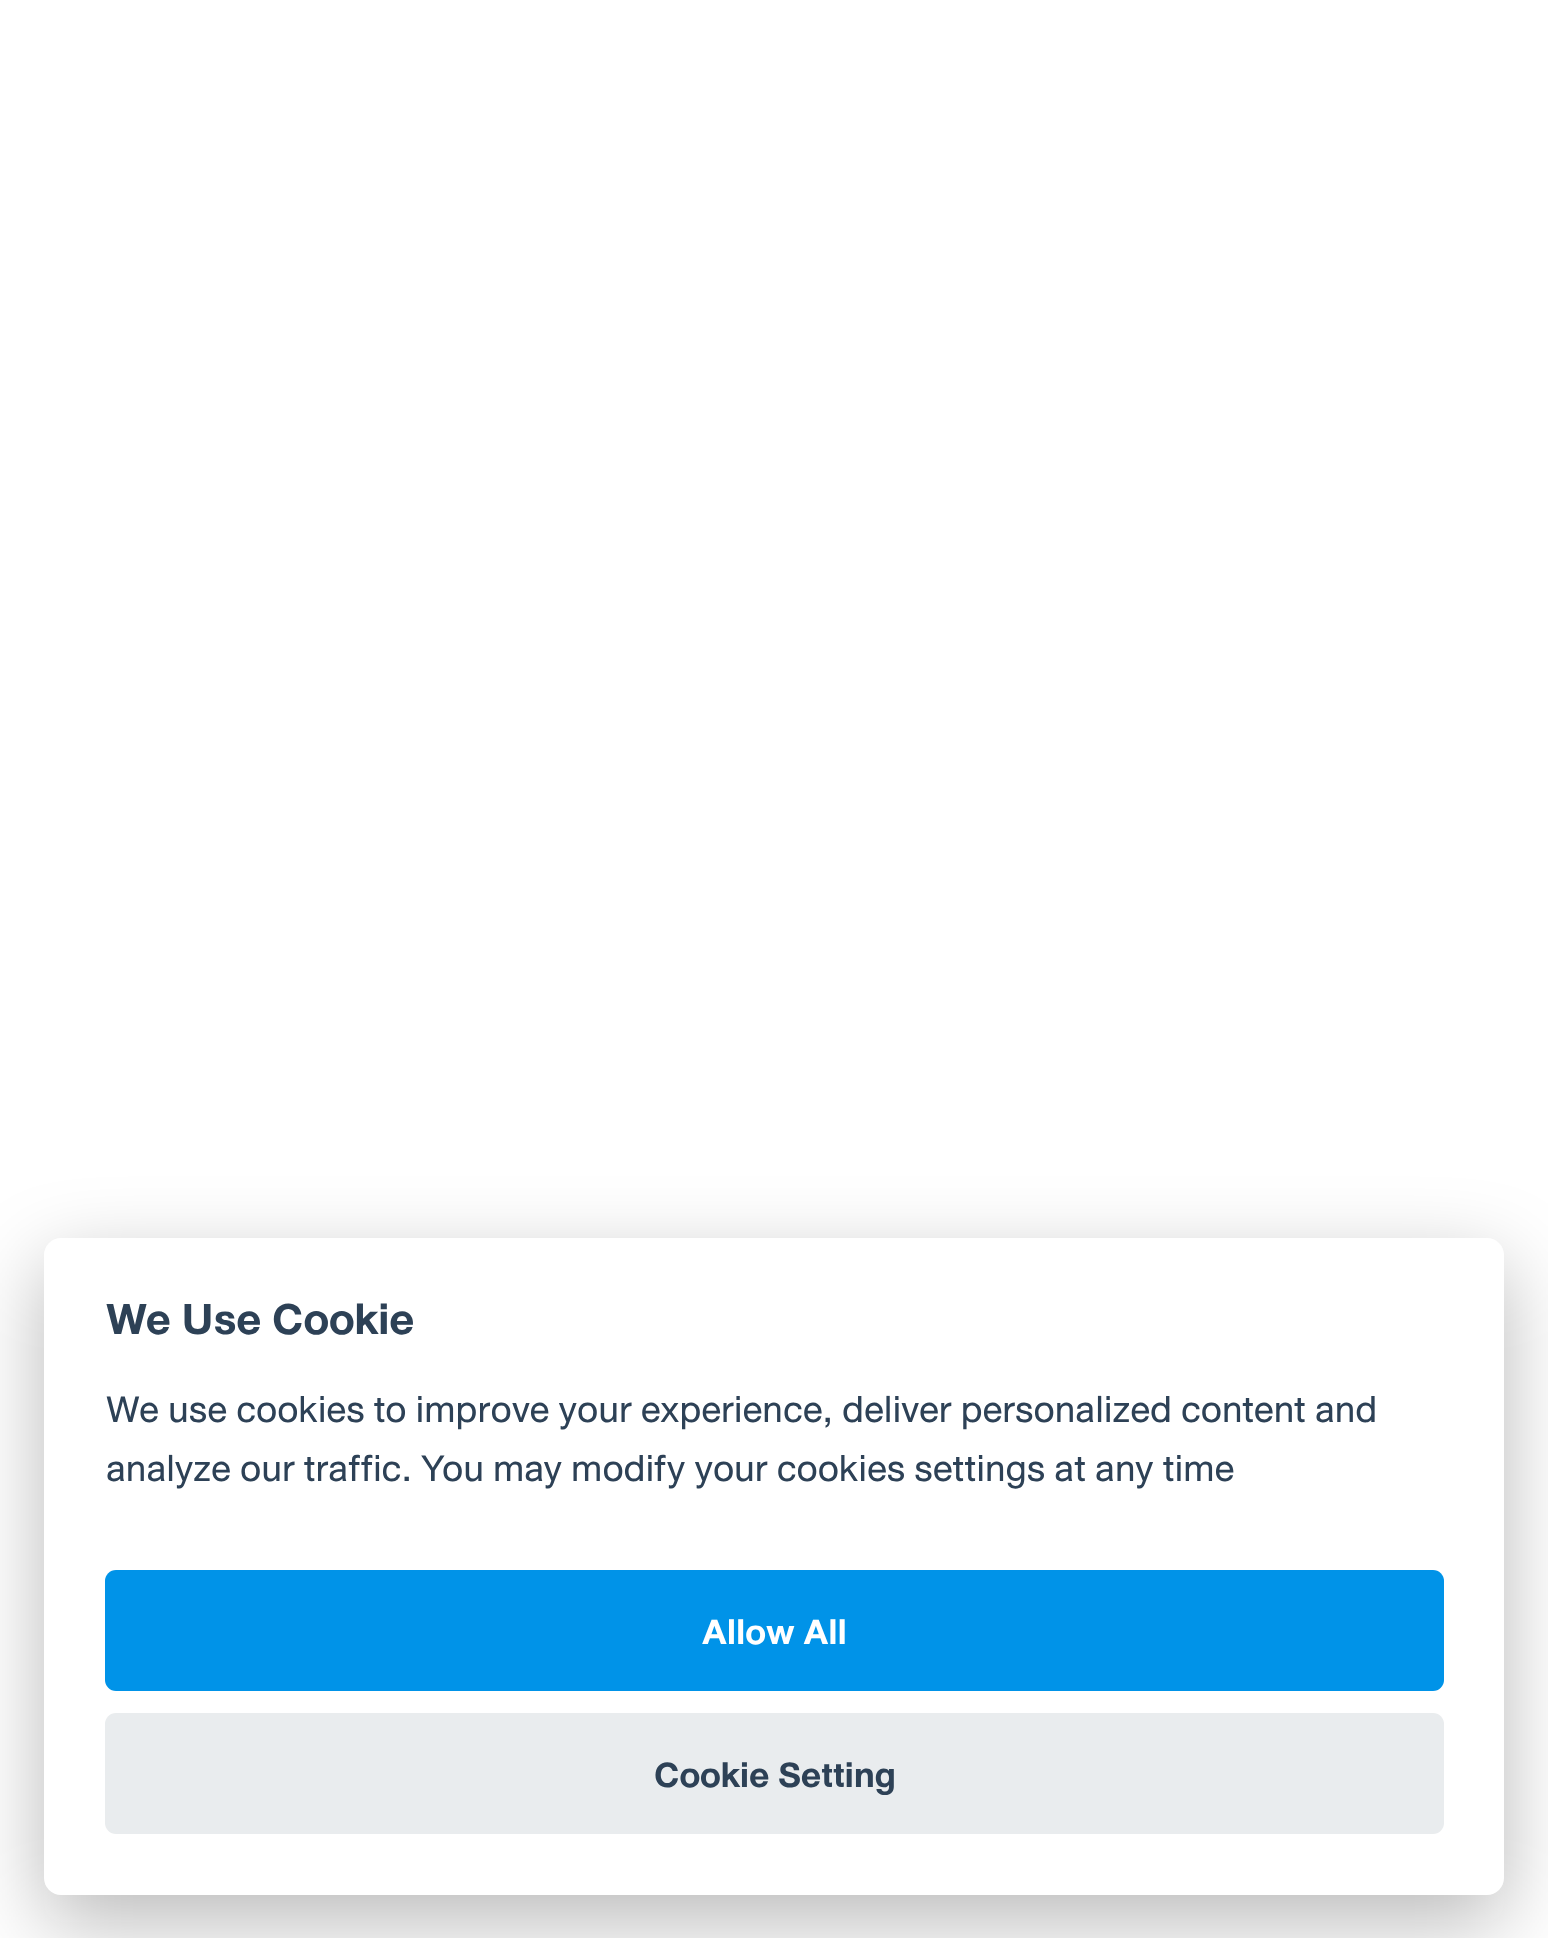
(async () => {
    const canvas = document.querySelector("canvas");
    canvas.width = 1548;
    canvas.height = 1938;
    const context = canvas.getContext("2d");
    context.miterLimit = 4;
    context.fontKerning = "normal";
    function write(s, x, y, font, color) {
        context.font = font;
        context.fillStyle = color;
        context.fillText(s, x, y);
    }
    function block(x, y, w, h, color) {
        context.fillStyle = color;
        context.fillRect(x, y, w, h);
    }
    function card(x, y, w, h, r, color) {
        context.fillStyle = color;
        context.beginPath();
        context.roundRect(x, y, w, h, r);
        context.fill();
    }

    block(0, 0, 1548, 1938, "rgb(255, 255, 255)");
    context.fillStyle = "rgba(2, 2, 3, 0.28)";
    context.filter = "blur(41px)";
    context.beginPath();
    context.roundRect(44, 1265, 1460, 657, 17);
    context.fill();
    context.filter = "none";
    card(44, 1238, 1460, 657, 17, "rgb(255, 255, 255)");
    write("We Use Cookie", 106, 1334, "bold 46.25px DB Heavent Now", "rgb(45, 65, 86)");
    write("We use cookies to improve your experience, deliver personalized content and", 106, 1422, "39.6px DB Heavent Now", "rgb(45, 65, 86)");
    write("analyze our traffic. You may modify your cookies settings at any time", 106, 1481, "39.6px DB Heavent Now", "rgb(45, 65, 86)");
    card(105, 1570, 1339, 121, 11, "rgb(0, 147, 232)");
    write("Allow All", 702, 1644, "bold 37.5px DB Heavent Now", "rgb(255, 255, 255)");
    card(105, 1713, 1339, 121, 11, "rgb(233, 236, 238)");
    write("Cookie Setting", 654, 1787, "bold 37.5px DB Heavent Now", "rgb(45, 65, 86)");
})();
